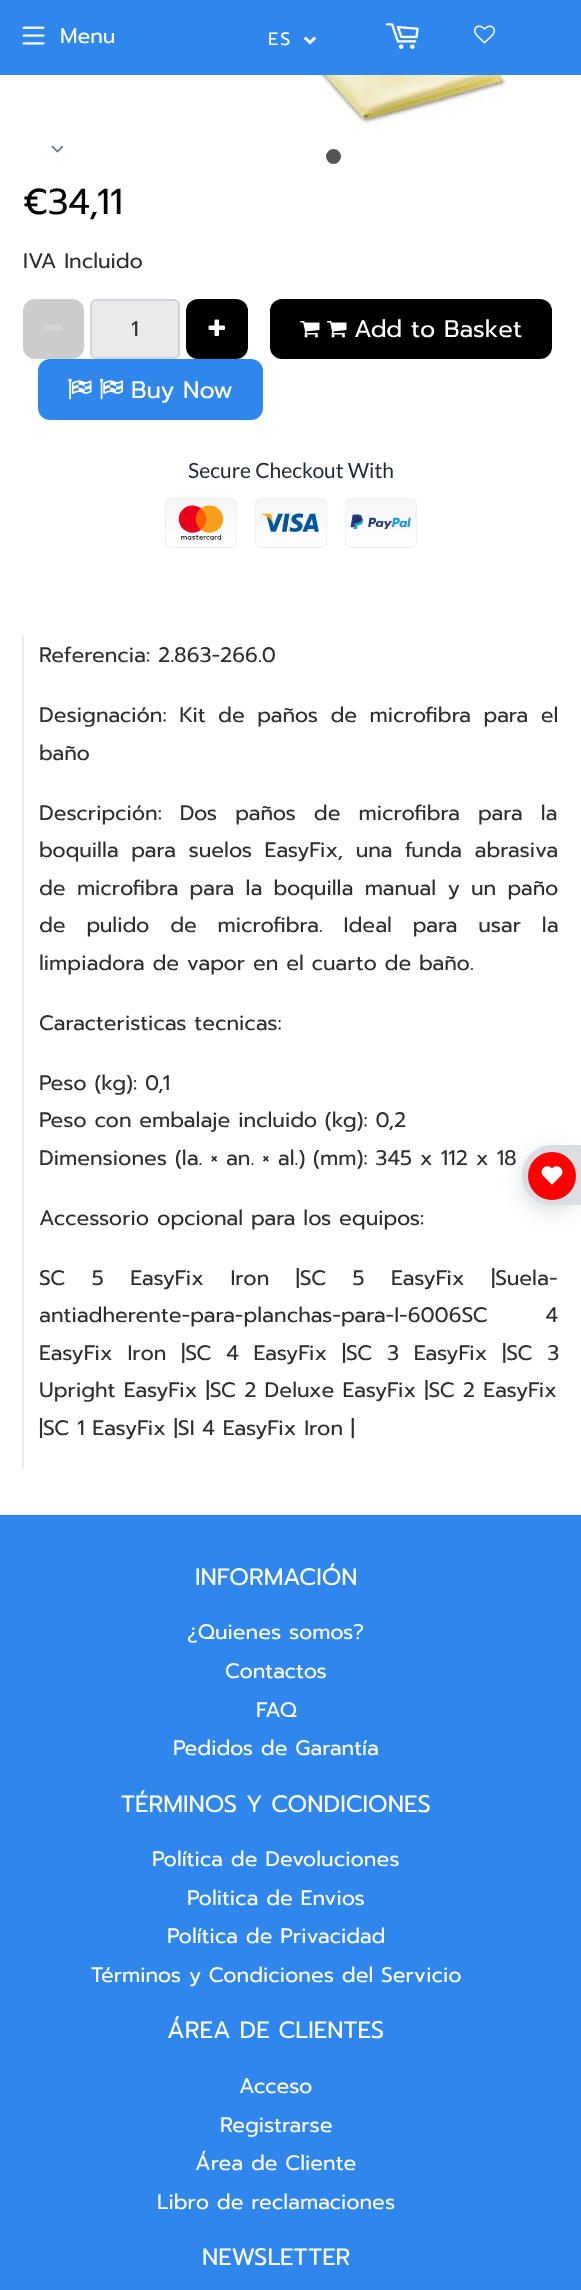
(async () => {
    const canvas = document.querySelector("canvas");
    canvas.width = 581;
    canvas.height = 2290;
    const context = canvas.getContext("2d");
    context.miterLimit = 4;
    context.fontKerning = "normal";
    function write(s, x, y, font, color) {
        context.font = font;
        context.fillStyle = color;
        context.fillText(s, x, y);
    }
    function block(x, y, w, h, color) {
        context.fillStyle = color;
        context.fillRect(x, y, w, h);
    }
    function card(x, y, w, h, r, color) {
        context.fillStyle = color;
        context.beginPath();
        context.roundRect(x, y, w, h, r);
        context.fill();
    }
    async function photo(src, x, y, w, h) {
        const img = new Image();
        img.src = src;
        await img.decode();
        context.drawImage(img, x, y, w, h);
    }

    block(0, 0, 581, 2290, "rgb(255, 255, 255)");
    block(0, 0, 581, 75, "rgb(47, 134, 236)");
    await photo("media/1.png", 22, 26, 23, 19);
    write("Menu", 60, 43, "21px Prompt", "rgb(255, 255, 255)");
    await photo("media/2.png", 385, 23, 34, 26);
    await photo("media/3.png", 474, 25, 21, 19);
    context.letterSpacing = "2px";
    write("ES", 268, 45, "18px Prompt", "rgb(255, 255, 255)");
    context.fillStyle = "rgb(234, 243, 253)";
    context.beginPath();
    context.moveTo(314, 36.5);
    context.lineTo(316.5, 38.5);
    context.lineTo(310, 44.5);
    context.lineTo(308, 42.5);
    context.closePath();
    context.fill();
    context.beginPath();
    context.moveTo(306, 36.5);
    context.lineTo(312, 42.5);
    context.lineTo(310, 44.5);
    context.lineTo(303.5, 38.5);
    context.closePath();
    context.fill();
    await photo("media/4.png", 51, 145, 13, 8);
    await photo("media/5.png", 247, 75, 260, 49);
    context.fillStyle = "rgb(85, 85, 85)";
    context.beginPath();
    context.arc(333.5, 156.5, 6.5, 0, Math.PI * 2);
    context.fill();
    context.strokeStyle = "rgb(85, 85, 85)";
    context.lineWidth = 2;
    context.stroke();
    context.letterSpacing = "0px";
    write("€34,11", 23, 214, "36px Prompt", "rgb(0, 0, 0)");
    write("IVA Incluido", 23, 268, "21px Prompt", "rgb(47, 47, 47)");
    card(23, 299, 61, 60, 12, "rgb(204, 204, 204)");
    block(45, 325, 17, 5, "rgb(214, 214, 214)");
    context.fillStyle = "rgb(234, 234, 234)";
    context.beginPath();
    context.roundRect(91, 300, 88, 58, 5);
    context.fill();
    context.strokeStyle = "rgb(209, 213, 219)";
    context.stroke();
    write("1", 131, 336, "21px Prompt", "rgb(47, 47, 47)");
    card(186, 299, 62, 60, 12, "rgb(0, 0, 0)");
    await photo("media/6.png", 208, 319, 17, 17);
    card(270, 299, 282, 60, 12, "rgb(0, 0, 0)");
    await photo("media/7.png", 300, 321, 20, 17);
    await photo("media/7.png", 327, 321, 20, 17);
    write("Add to Basket", 354, 337, "24px Prompt", "rgb(255, 255, 255)");
    card(38, 359, 225, 61, 12, "rgb(47, 134, 236)");
    await photo("media/8.png", 68, 378, 24, 22);
    await photo("media/9.png", 99, 378, 24, 22);
    write("Buy Now", 131, 398, "24px Prompt", "rgb(255, 255, 255)");
    await photo("media/10.png", 165, 462, 252, 86);
    context.fillStyle = "rgb(235, 235, 235)";
    context.beginPath();
    context.moveTo(22, 1470);
    context.lineTo(22, 634);
    context.lineTo(24, 636);
    context.lineTo(24, 1468);
    context.closePath();
    context.fill();
    write("Referencia: 2.863-266.0", 39, 662, "21px Prompt", "rgb(47, 47, 47)");
    context.wordSpacing = "4.75px";
    write("Designación: Kit de paños de microfibra para el", 39, 722, "21px Prompt", "rgb(47, 47, 47)");
    context.wordSpacing = "0px";
    write("baño", 39, 760, "21px Prompt", "rgb(47, 47, 47)");
    context.wordSpacing = "10.25px";
    write("Descripción: Dos paños de microfibra para la", 39, 820, "21px Prompt", "rgb(47, 47, 47)");
    context.wordSpacing = "4.75px";
    write("boquilla para suelos EasyFix, una funda abrasiva", 39, 857, "21px Prompt", "rgb(47, 47, 47)");
    context.wordSpacing = "3.5px";
    write("de microfibra para la boquilla manual y un paño", 39, 895, "21px Prompt", "rgb(47, 47, 47)");
    context.wordSpacing = "13px";
    write("de pulido de microfibra. Ideal para usar la", 39, 932, "21px Prompt", "rgb(47, 47, 47)");
    context.wordSpacing = "0px";
    write("limpiadora de vapor en el cuarto de baño.", 39, 970, "21px Prompt", "rgb(47, 47, 47)");
    write("Caracteristicas tecnicas:", 39, 1030, "21px Prompt", "rgb(47, 47, 47)");
    write("Peso (kg): 0,1", 39, 1090, "21px Prompt", "rgb(47, 47, 47)");
    write("Peso con embalaje incluido (kg): 0,2", 39, 1127, "21px Prompt", "rgb(47, 47, 47)");
    write("Dimensiones (la. × an. × al.) (mm): 345 x 112 x 18", 39, 1165, "21px Prompt", "rgb(47, 47, 47)");
    write("Accessorio opcional para los equipos:", 39, 1225, "21px Prompt", "rgb(47, 47, 47)");
    context.wordSpacing = "18.75px";
    write("SC 5 EasyFix Iron |SC 5 EasyFix |Suela-", 39, 1285, "21px Prompt", "rgb(47, 47, 47)");
    context.wordSpacing = "50px";
    write("antiadherente-para-planchas-para-I-6006SC 4", 39, 1322, "21px Prompt", "rgb(47, 47, 47)");
    context.wordSpacing = "7px";
    write("EasyFix Iron |SC 4 EasyFix |SC 3 EasyFix |SC 3", 39, 1360, "21px Prompt", "rgb(47, 47, 47)");
    context.wordSpacing = "0.5px";
    write("Upright EasyFix |SC 2 Deluxe EasyFix |SC 2 EasyFix", 39, 1397, "21px Prompt", "rgb(47, 47, 47)");
    context.wordSpacing = "0px";
    write("|SC 1 EasyFix |SI 4 EasyFix Iron |", 39, 1435, "21px Prompt", "rgb(47, 47, 47)");
    context.fillStyle = "rgba(17, 34, 51, 0.16)";
    context.filter = "blur(10.5px)";
    context.beginPath();
    context.roundRect(522, 1151, 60, 60, 30);
    context.fill();
    context.filter = "none";
    context.fillStyle = "rgb(220, 220, 227)";
    context.beginPath();
    context.moveTo(522, 1175);
    context.bezierCurveTo(522, 1159, 535, 1145, 552, 1145);
    context.lineTo(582, 1145);
    context.lineTo(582, 1205);
    context.lineTo(552, 1205);
    context.bezierCurveTo(535, 1205, 522, 1192, 522, 1175);
    context.closePath();
    context.fill();
    context.fillStyle = "rgb(255, 0, 0)";
    context.beginPath();
    context.arc(552, 1176, 24, 0, Math.PI * 2);
    context.fill();
    await photo("media/11.png", 541, 1166, 22, 19);
    block(0, 1515, 581, 775, "rgb(47, 134, 236)");
    write("INFORMACIÓN", 195, 1585, "23.75px Prompt", "rgb(255, 255, 255)");
    write("¿Quienes somos?", 187, 1639, "21px Prompt", "rgb(255, 255, 255)");
    write("Contactos", 225, 1678, "21px Prompt", "rgb(255, 255, 255)");
    write("FAQ", 256, 1717, "21px Prompt", "rgb(255, 255, 255)");
    write("Pedidos de Garantía", 173, 1755, "21px Prompt", "rgb(255, 255, 255)");
    write("TÉRMINOS Y CONDICIONES", 121, 1812, "23.75px Prompt", "rgb(255, 255, 255)");
    write("Política de Devoluciones", 152, 1866, "21px Prompt", "rgb(255, 255, 255)");
    write("Politica de Envios", 187, 1905, "21px Prompt", "rgb(255, 255, 255)");
    write("Política de Privacidad", 167, 1943, "21px Prompt", "rgb(255, 255, 255)");
    write("Términos y Condiciones del Servicio", 91, 1982, "21px Prompt", "rgb(255, 255, 255)");
    write("ÁREA DE CLIENTES", 167, 2038, "23.75px Prompt", "rgb(255, 255, 255)");
    write("Acceso", 239, 2093, "21px Prompt", "rgb(255, 255, 255)");
    write("Registrarse", 220, 2132, "21px Prompt", "rgb(255, 255, 255)");
    write("Área de Cliente", 195, 2170, "21px Prompt", "rgb(255, 255, 255)");
    write("Libro de reclamaciones", 157, 2209, "21px Prompt", "rgb(255, 255, 255)");
    write("NEWSLETTER", 202, 2265, "23.75px Prompt", "rgb(255, 255, 255)");
})();
